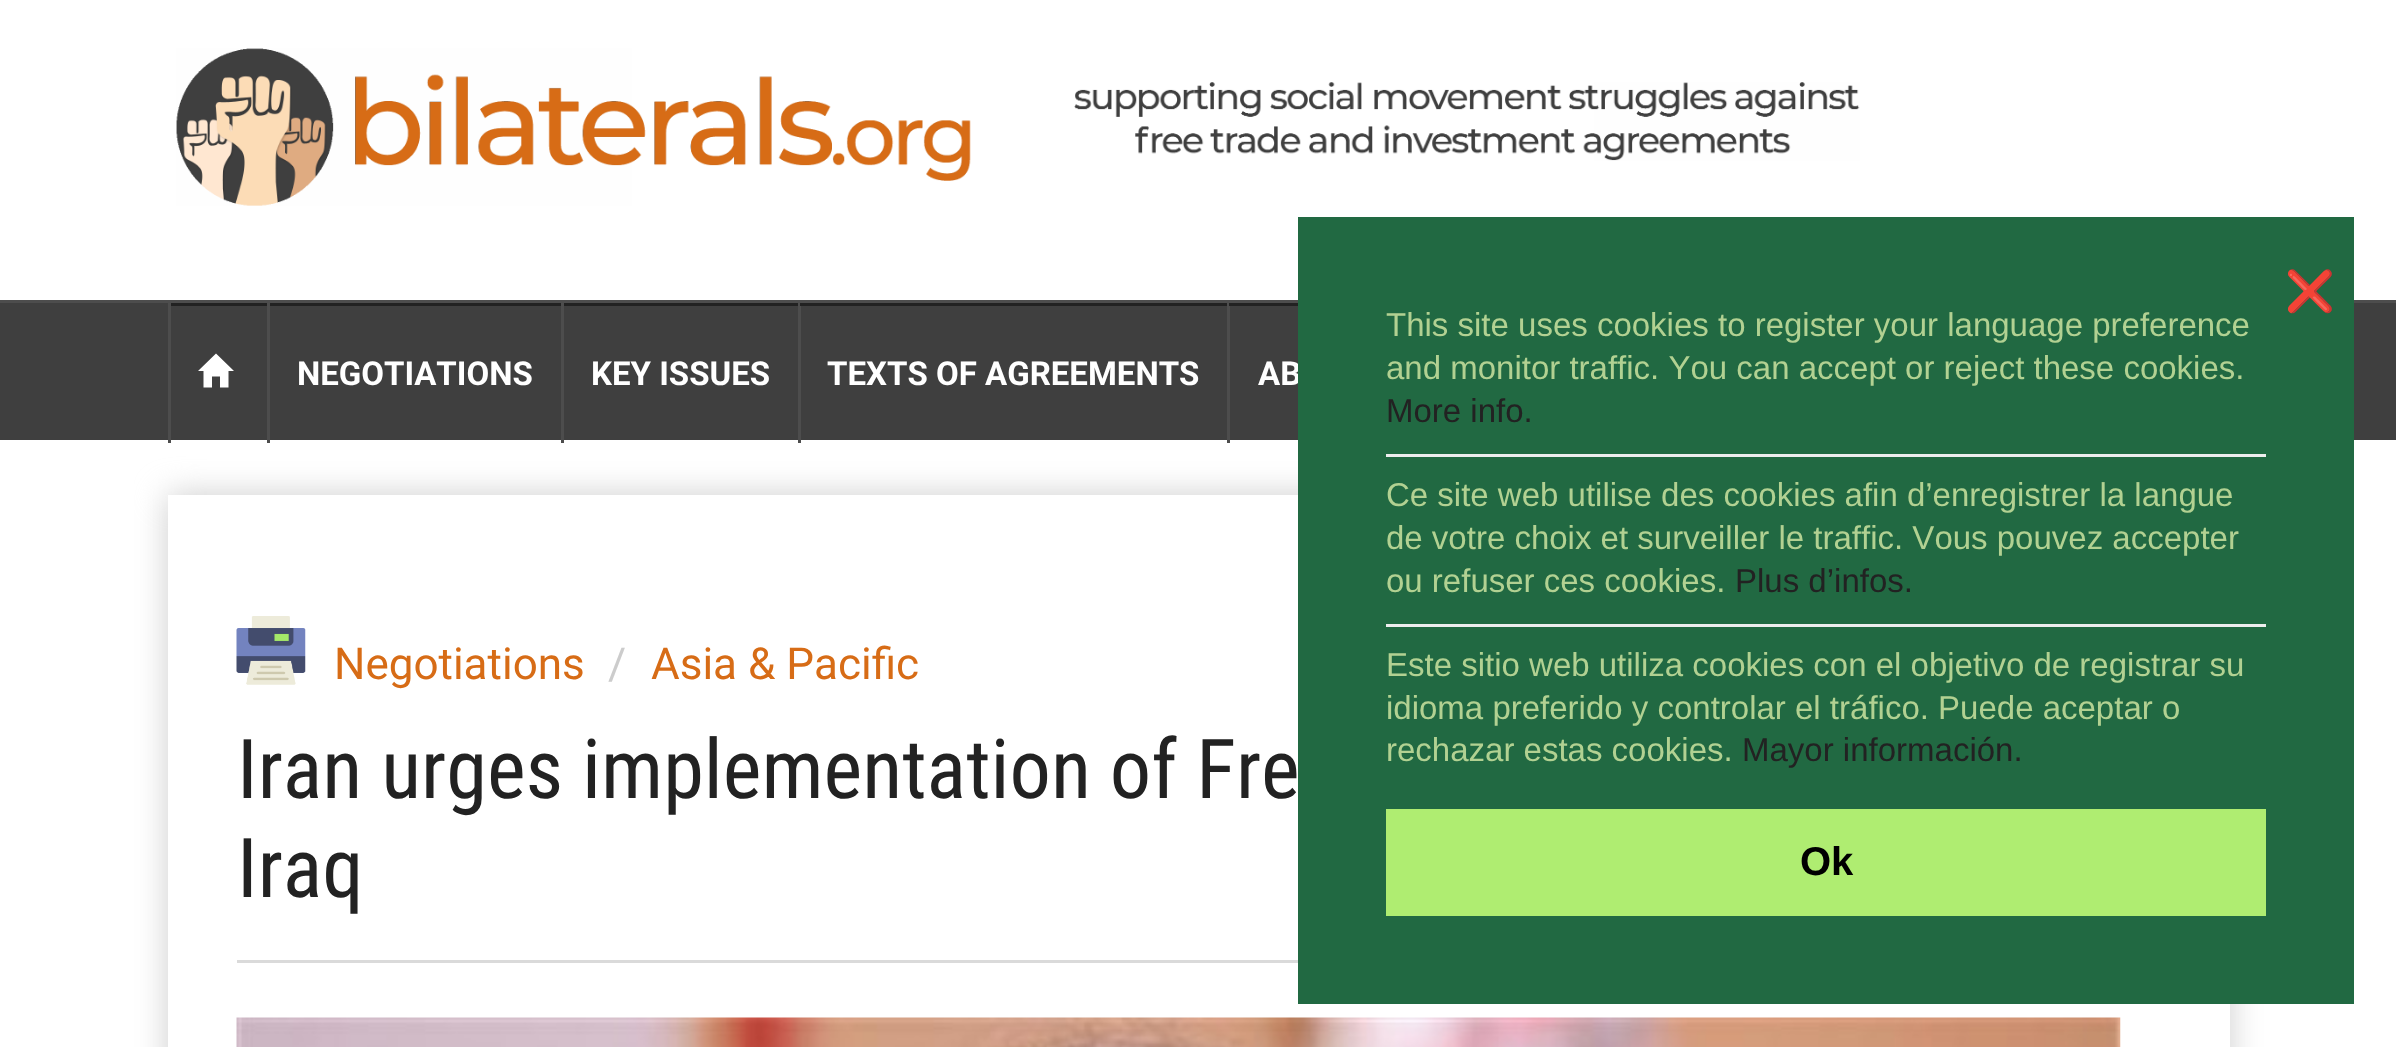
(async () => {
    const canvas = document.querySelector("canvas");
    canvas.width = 2396;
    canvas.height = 1047;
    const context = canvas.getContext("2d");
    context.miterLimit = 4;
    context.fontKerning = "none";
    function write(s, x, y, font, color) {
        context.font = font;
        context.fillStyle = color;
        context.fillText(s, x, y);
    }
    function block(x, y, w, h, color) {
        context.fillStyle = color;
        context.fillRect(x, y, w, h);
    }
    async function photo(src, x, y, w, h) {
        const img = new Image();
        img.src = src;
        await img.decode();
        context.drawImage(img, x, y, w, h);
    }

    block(0, 0, 2396, 1047, "rgb(255, 255, 255)");
    block(0, 300, 2396, 3, "rgb(77, 77, 77)");
    await photo("media/1.png", 176, 48, 795, 158);
    await photo("media/2.png", 1074, 82, 786, 79);
    block(0, 303, 2396, 137, "rgb(63, 63, 63)");
    block(168, 303, 3, 140, "rgb(77, 77, 77)");
    block(267, 303, 3, 140, "rgb(77, 77, 77)");
    block(171, 303, 96, 3, "rgb(34, 34, 34)");
    context.fillStyle = "rgb(255, 255, 255)";
    context.beginPath();
    context.moveTo(198, 371);
    context.lineTo(216, 353.5);
    context.lineTo(234, 371);
    context.lineTo(228.5, 371);
    context.lineTo(228.5, 387.5);
    context.lineTo(220, 387.5);
    context.lineTo(220, 376.5);
    context.lineTo(212, 376.5);
    context.lineTo(212, 387.5);
    context.lineTo(203.5, 387.5);
    context.lineTo(203.5, 371);
    context.closePath();
    context.fill();
    block(561, 303, 3, 140, "rgb(77, 77, 77)");
    block(270, 303, 291, 3, "rgb(34, 34, 34)");
    write("NEGOTIATIONS", 297, 385, "bold 33px Roboto", "rgb(255, 255, 255)");
    block(798, 303, 3, 140, "rgb(77, 77, 77)");
    block(564, 303, 234, 3, "rgb(34, 34, 34)");
    write("KEY ISSUES", 591, 385, "bold 33px Roboto", "rgb(255, 255, 255)");
    block(1227, 303, 3, 140, "rgb(77, 77, 77)");
    block(800, 303, 427, 3, "rgb(34, 34, 34)");
    write("TEXTS OF AGREEMENTS", 827, 385, "bold 33px Roboto", "rgb(255, 255, 255)");
    block(1229, 303, 69, 3, "rgb(34, 34, 34)");
    write("AB", 1258, 385, "bold 33px Roboto", "rgb(255, 255, 255)");
    context.save();
    context.beginPath();
    context.moveTo(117, 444);
    context.lineTo(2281, 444);
    context.lineTo(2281, 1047);
    context.lineTo(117, 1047);
    context.closePath();
    context.moveTo(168, 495);
    context.lineTo(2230, 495);
    context.lineTo(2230, 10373);
    context.lineTo(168, 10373);
    context.closePath();
    context.clip("evenodd");
    context.fillStyle = "rgb(204, 204, 204)";
    context.filter = "blur(16.5px)";
    context.beginPath();
    context.rect(168, 495, 2062, 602);
    context.fill();
    context.filter = "none";
    context.restore();
    block(237, 960, 1061, 3, "rgb(218, 218, 218)");
    await photo("media/3.png", 236, 616, 70, 69);
    write("Negotiations", 334, 679, "44px Roboto", "rgb(215, 108, 22)");
    write("/", 608, 679, "44px Roboto", "rgb(204, 204, 204)");
    write("Asia & Pacific", 651, 679, "44px Roboto", "rgb(215, 108, 22)");
    write("Iran urges implementation of Fre", 237, 798, "82.5px Roboto Condensed", "rgb(34, 34, 34)");
    write("Iraq", 237, 897, "82.5px Roboto Condensed", "rgb(34, 34, 34)");
    await photo("media/4.png", 236, 1017, 1885, 30);
    block(1298, 217, 1056, 787, "rgb(33, 105, 66)");
    write("❌", 2285, 305, "40px Noto Color Emoji", "rgb(164, 199, 138)");
    write("This site uses cookies to register your language preference", 1386, 336, "33px Liberation Sans", "rgb(178, 209, 146)");
    write("and monitor traffic. You can accept or reject these cookies.", 1386, 379, "33px Liberation Sans", "rgb(178, 209, 146)");
    write("More info.", 1386, 422, "33px Liberation Sans", "rgb(34, 34, 34)");
    block(1386, 454, 880, 3, "rgb(238, 238, 238)");
    write("Ce site web utilise des cookies afin d’enregistrer la langue", 1386, 506, "33px Liberation Sans", "rgb(178, 209, 146)");
    write("de votre choix et surveiller le traffic. Vous pouvez accepter", 1386, 549, "33px Liberation Sans", "rgb(178, 209, 146)");
    write("ou refuser ces cookies.", 1386, 592, "33px Liberation Sans", "rgb(178, 209, 146)");
    write("Plus d’infos.", 1735, 592, "33px Liberation Sans", "rgb(34, 34, 34)");
    block(1386, 624, 880, 3, "rgb(238, 238, 238)");
    write("Este sitio web utiliza cookies con el objetivo de registrar su", 1386, 676, "33px Liberation Sans", "rgb(178, 209, 146)");
    write("idioma preferido y controlar el tráfico. Puede aceptar o", 1386, 719, "33px Liberation Sans", "rgb(178, 209, 146)");
    write("rechazar estas cookies.", 1386, 761, "33px Liberation Sans", "rgb(178, 209, 146)");
    write("Mayor información.", 1742, 761, "33px Liberation Sans", "rgb(34, 34, 34)");
    block(1386, 809, 880, 107, "rgb(175, 237, 113)");
    write("Ok", 1800, 875, "bold 40px Liberation Sans", "rgb(0, 0, 0)");
})();
